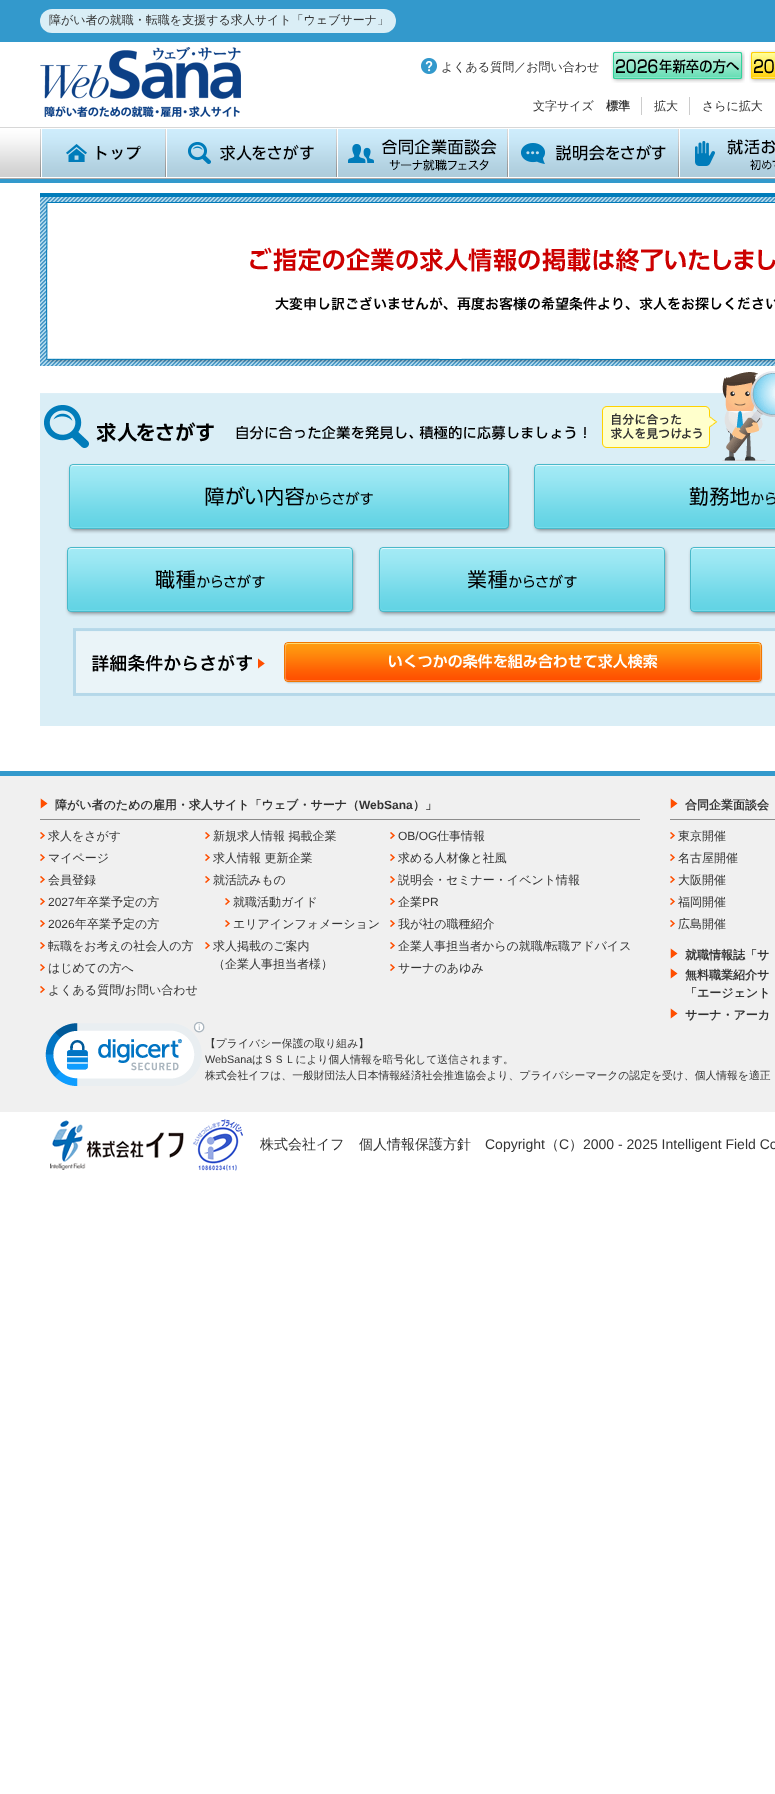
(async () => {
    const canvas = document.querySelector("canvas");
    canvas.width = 775;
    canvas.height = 1794;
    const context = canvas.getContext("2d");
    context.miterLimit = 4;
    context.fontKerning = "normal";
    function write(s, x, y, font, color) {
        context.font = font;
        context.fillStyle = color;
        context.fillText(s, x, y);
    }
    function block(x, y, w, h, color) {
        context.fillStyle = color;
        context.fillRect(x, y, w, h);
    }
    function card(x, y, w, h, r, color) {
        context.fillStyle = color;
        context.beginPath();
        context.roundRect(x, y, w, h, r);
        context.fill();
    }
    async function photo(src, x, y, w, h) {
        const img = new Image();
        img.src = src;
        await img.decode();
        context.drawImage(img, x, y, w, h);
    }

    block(0, 0, 775, 1794, "rgb(255, 255, 255)");
    block(0, 0, 775, 42, "rgb(51, 153, 204)");
    card(40, 9, 356, 24, 12, "rgb(218, 238, 246)");
    write("障がい者の就職・転職を支援する求人サイト「ウェブサーナ」", 49, 24, "500 12px WenQuanYi Zen Hei", "rgb(51, 51, 51)");
    await photo("media/1.png", 40, 47, 201, 70);
    await photo("media/2.png", 421, 58, 16, 16);
    write("よくある質問／お問い合わせ", 441, 71, "500 12px WenQuanYi Zen Hei", "rgb(51, 51, 51)");
    await photo("media/3.png", 611, 50, 134, 33);
    await photo("media/4.png", 749, 50, 26, 33);
    write("文字サイズ", 533, 110, "500 12px WenQuanYi Zen Hei", "rgb(51, 51, 51)");
    block(641, 97, 1, 18, "rgb(204, 204, 204)");
    write("標準", 606, 110, "bold 12px WenQuanYi Zen Hei", "rgb(51, 51, 51)");
    block(689, 97, 1, 18, "rgb(204, 204, 204)");
    write("拡大", 654, 110, "500 12px WenQuanYi Zen Hei", "rgb(51, 51, 51)");
    write("さらに拡大", 702, 110, "500 12px WenQuanYi Zen Hei", "rgb(51, 51, 51)");
    await photo("media/5.png", 0, 127, 775, 52);
    block(0, 179, 775, 4, "rgb(51, 153, 204)");
    await photo("media/6.png", 40, 129, 126, 48);
    await photo("media/7.png", 166, 129, 171, 48);
    await photo("media/8.png", 337, 129, 171, 48);
    await photo("media/9.png", 508, 129, 171, 48);
    await photo("media/10.png", 679, 129, 96, 48);
    block(40, 193, 735, 4, "rgb(0, 124, 186)");
    await photo("media/11.png", 40, 197, 735, 169);
    await photo("media/12.png", 40, 371, 735, 91);
    block(40, 462, 735, 264, "rgb(218, 238, 246)");
    await photo("media/13.png", 67, 463, 446, 71);
    await photo("media/14.png", 532, 463, 243, 71);
    await photo("media/15.png", 65, 546, 292, 71);
    await photo("media/16.png", 377, 546, 292, 71);
    await photo("media/17.png", 688, 546, 87, 71);
    await photo("media/18.png", 73, 628, 702, 68);
    block(0, 776, 775, 336, "rgb(240, 240, 240)");
    block(0, 771, 775, 5, "rgb(51, 153, 204)");
    block(40, 819, 600, 1, "rgb(140, 140, 140)");
    await photo("media/19.png", 40, 798, 8, 11);
    write("障がい者のための雇用・求人サイト「ウェブ・サーナ（", 55, 809, "bold 12px WenQuanYi Zen Hei", "rgb(51, 51, 51)");
    write("WebSana", 359, 809, "bold 12px Liberation Sans", "rgb(51, 51, 51)");
    write("）」", 413, 809, "bold 12px WenQuanYi Zen Hei", "rgb(51, 51, 51)");
    await photo("media/20.png", 40, 832, 5, 7);
    write("求人をさがす", 48, 840, "500 12px WenQuanYi Zen Hei", "rgb(51, 51, 51)");
    await photo("media/20.png", 40, 854, 5, 7);
    write("マイページ", 48, 862, "500 12px WenQuanYi Zen Hei", "rgb(51, 51, 51)");
    await photo("media/20.png", 40, 876, 5, 7);
    write("会員登録", 48, 884, "500 12px WenQuanYi Zen Hei", "rgb(51, 51, 51)");
    await photo("media/20.png", 40, 898, 5, 7);
    write("2027", 48, 906, "12px Liberation Sans", "rgb(51, 51, 51)");
    write("年卒業予定の方", 75, 906, "500 12px WenQuanYi Zen Hei", "rgb(51, 51, 51)");
    await photo("media/20.png", 40, 920, 5, 7);
    write("2026", 48, 928, "12px Liberation Sans", "rgb(51, 51, 51)");
    write("年卒業予定の方", 75, 928, "500 12px WenQuanYi Zen Hei", "rgb(51, 51, 51)");
    await photo("media/20.png", 40, 942, 5, 7);
    write("転職をお考えの社会人の方", 48, 950, "500 12px WenQuanYi Zen Hei", "rgb(51, 51, 51)");
    await photo("media/20.png", 40, 964, 5, 7);
    write("はじめての方へ", 48, 972, "500 12px WenQuanYi Zen Hei", "rgb(51, 51, 51)");
    await photo("media/20.png", 40, 986, 5, 7);
    write("よくある質問 お問い合わせ", 48, 994, "500 12px WenQuanYi Zen Hei", "rgb(51, 51, 51)");
    write("/", 121, 994, "12px Liberation Sans", "rgb(51, 51, 51)");
    await photo("media/20.png", 205, 832, 5, 7);
    write("新規求人情報 掲載企業", 213, 840, "500 12px WenQuanYi Zen Hei", "rgb(51, 51, 51)");
    await photo("media/20.png", 205, 854, 5, 7);
    write("求人情報 更新企業", 213, 862, "500 12px WenQuanYi Zen Hei", "rgb(51, 51, 51)");
    await photo("media/20.png", 205, 876, 5, 7);
    write("就活読みもの", 213, 884, "500 12px WenQuanYi Zen Hei", "rgb(51, 51, 51)");
    await photo("media/20.png", 225, 898, 5, 7);
    write("就職活動ガイド", 233, 906, "500 12px WenQuanYi Zen Hei", "rgb(51, 51, 51)");
    await photo("media/20.png", 225, 920, 5, 7);
    write("エリアインフォメーション", 233, 928, "500 12px WenQuanYi Zen Hei", "rgb(51, 51, 51)");
    await photo("media/20.png", 205, 942, 5, 7);
    write("求人掲載のご案内", 213, 950, "500 12px WenQuanYi Zen Hei", "rgb(51, 51, 51)");
    write("（企業人事担当者様）", 213, 968, "500 12px WenQuanYi Zen Hei", "rgb(51, 51, 51)");
    await photo("media/20.png", 390, 832, 5, 7);
    write("OB/OG", 398, 840, "12px Liberation Sans", "rgb(51, 51, 51)");
    write("仕事情報", 437, 840, "500 12px WenQuanYi Zen Hei", "rgb(51, 51, 51)");
    await photo("media/20.png", 390, 854, 5, 7);
    write("求める人材像と社風", 398, 862, "500 12px WenQuanYi Zen Hei", "rgb(51, 51, 51)");
    await photo("media/20.png", 390, 876, 5, 7);
    write("説明会・セミナー・イベント情報", 398, 884, "500 12px WenQuanYi Zen Hei", "rgb(51, 51, 51)");
    await photo("media/20.png", 390, 898, 5, 7);
    write("企業", 398, 906, "500 12px WenQuanYi Zen Hei", "rgb(51, 51, 51)");
    write("PR", 422, 906, "12px Liberation Sans", "rgb(51, 51, 51)");
    await photo("media/20.png", 390, 920, 5, 7);
    write("我が社の職種紹介", 398, 928, "500 12px WenQuanYi Zen Hei", "rgb(51, 51, 51)");
    await photo("media/20.png", 390, 942, 5, 7);
    write("企業人事担当者からの就職", 398, 950, "500 12px WenQuanYi Zen Hei", "rgb(51, 51, 51)");
    write("/", 543, 950, "12px Liberation Sans", "rgb(51, 51, 51)");
    write("転職アドバイス", 546, 950, "500 12px WenQuanYi Zen Hei", "rgb(51, 51, 51)");
    await photo("media/20.png", 390, 964, 5, 7);
    write("サーナのあゆみ", 398, 972, "500 12px WenQuanYi Zen Hei", "rgb(51, 51, 51)");
    block(670, 819, 105, 1, "rgb(140, 140, 140)");
    await photo("media/19.png", 670, 798, 8, 11);
    write("合同企業面談会", 685, 809, "bold 12px WenQuanYi Zen Hei", "rgb(51, 51, 51)");
    await photo("media/20.png", 670, 832, 5, 7);
    write("東京開催", 678, 840, "500 12px WenQuanYi Zen Hei", "rgb(51, 51, 51)");
    await photo("media/20.png", 670, 854, 5, 7);
    write("名古屋開催", 678, 862, "500 12px WenQuanYi Zen Hei", "rgb(51, 51, 51)");
    await photo("media/20.png", 670, 876, 5, 7);
    write("大阪開催", 678, 884, "500 12px WenQuanYi Zen Hei", "rgb(51, 51, 51)");
    await photo("media/20.png", 670, 898, 5, 7);
    write("福岡開催", 678, 906, "500 12px WenQuanYi Zen Hei", "rgb(51, 51, 51)");
    await photo("media/20.png", 670, 920, 5, 7);
    write("広島開催", 678, 928, "500 12px WenQuanYi Zen Hei", "rgb(51, 51, 51)");
    await photo("media/19.png", 670, 948, 8, 11);
    write("就職情報誌「サ", 685, 959, "bold 12px WenQuanYi Zen Hei", "rgb(51, 51, 51)");
    await photo("media/19.png", 670, 968, 8, 11);
    write("無料職業紹介サ", 685, 979, "bold 12px WenQuanYi Zen Hei", "rgb(51, 51, 51)");
    write("「エージェント", 685, 997, "bold 12px WenQuanYi Zen Hei", "rgb(51, 51, 51)");
    await photo("media/19.png", 670, 1008, 8, 11);
    write("サーナ・アーカ", 685, 1019, "bold 12px WenQuanYi Zen Hei", "rgb(51, 51, 51)");
    await photo("media/21.png", 45, 1022, 160, 64);
    write("【プライバシー保護の取り組み】", 205, 1047, "500 10.8px WenQuanYi Zen Hei", "rgb(51, 51, 51)");
    write("WebSana", 205, 1063, "10.8px Liberation Sans", "rgb(51, 51, 51)");
    write("はＳＳＬにより個人情報を暗号化して送信されます。", 252, 1063, "500 10.8px WenQuanYi Zen Hei", "rgb(51, 51, 51)");
    write("株式会社イフは、一般財団法人日本情報経済社会推進協会より、プライバシーマークの認定を受け、個人情報を適正", 205, 1079, "500 10.8px WenQuanYi Zen Hei", "rgb(51, 51, 51)");
    await photo("media/22.png", 50, 1120, 134, 50);
    await photo("media/23.png", 193, 1119, 50, 52);
    write("株式会社イフ", 260, 1149, "500 14px WenQuanYi Zen Hei", "rgb(51, 51, 51)");
    write("個人情報保護方針", 359, 1149, "500 14px WenQuanYi Zen Hei", "rgb(51, 51, 51)");
    write("Copyright", 485, 1149, "14px Liberation Sans", "rgb(51, 51, 51)");
    write("（", 545, 1149, "500 14px WenQuanYi Zen Hei", "rgb(51, 51, 51)");
    write("C", 559, 1149, "14px Liberation Sans", "rgb(51, 51, 51)");
    write("）", 569, 1149, "500 14px WenQuanYi Zen Hei", "rgb(51, 51, 51)");
    write("2000 - 2025 Intelligent Field Co", 583, 1149, "14px Liberation Sans", "rgb(51, 51, 51)");
})();
